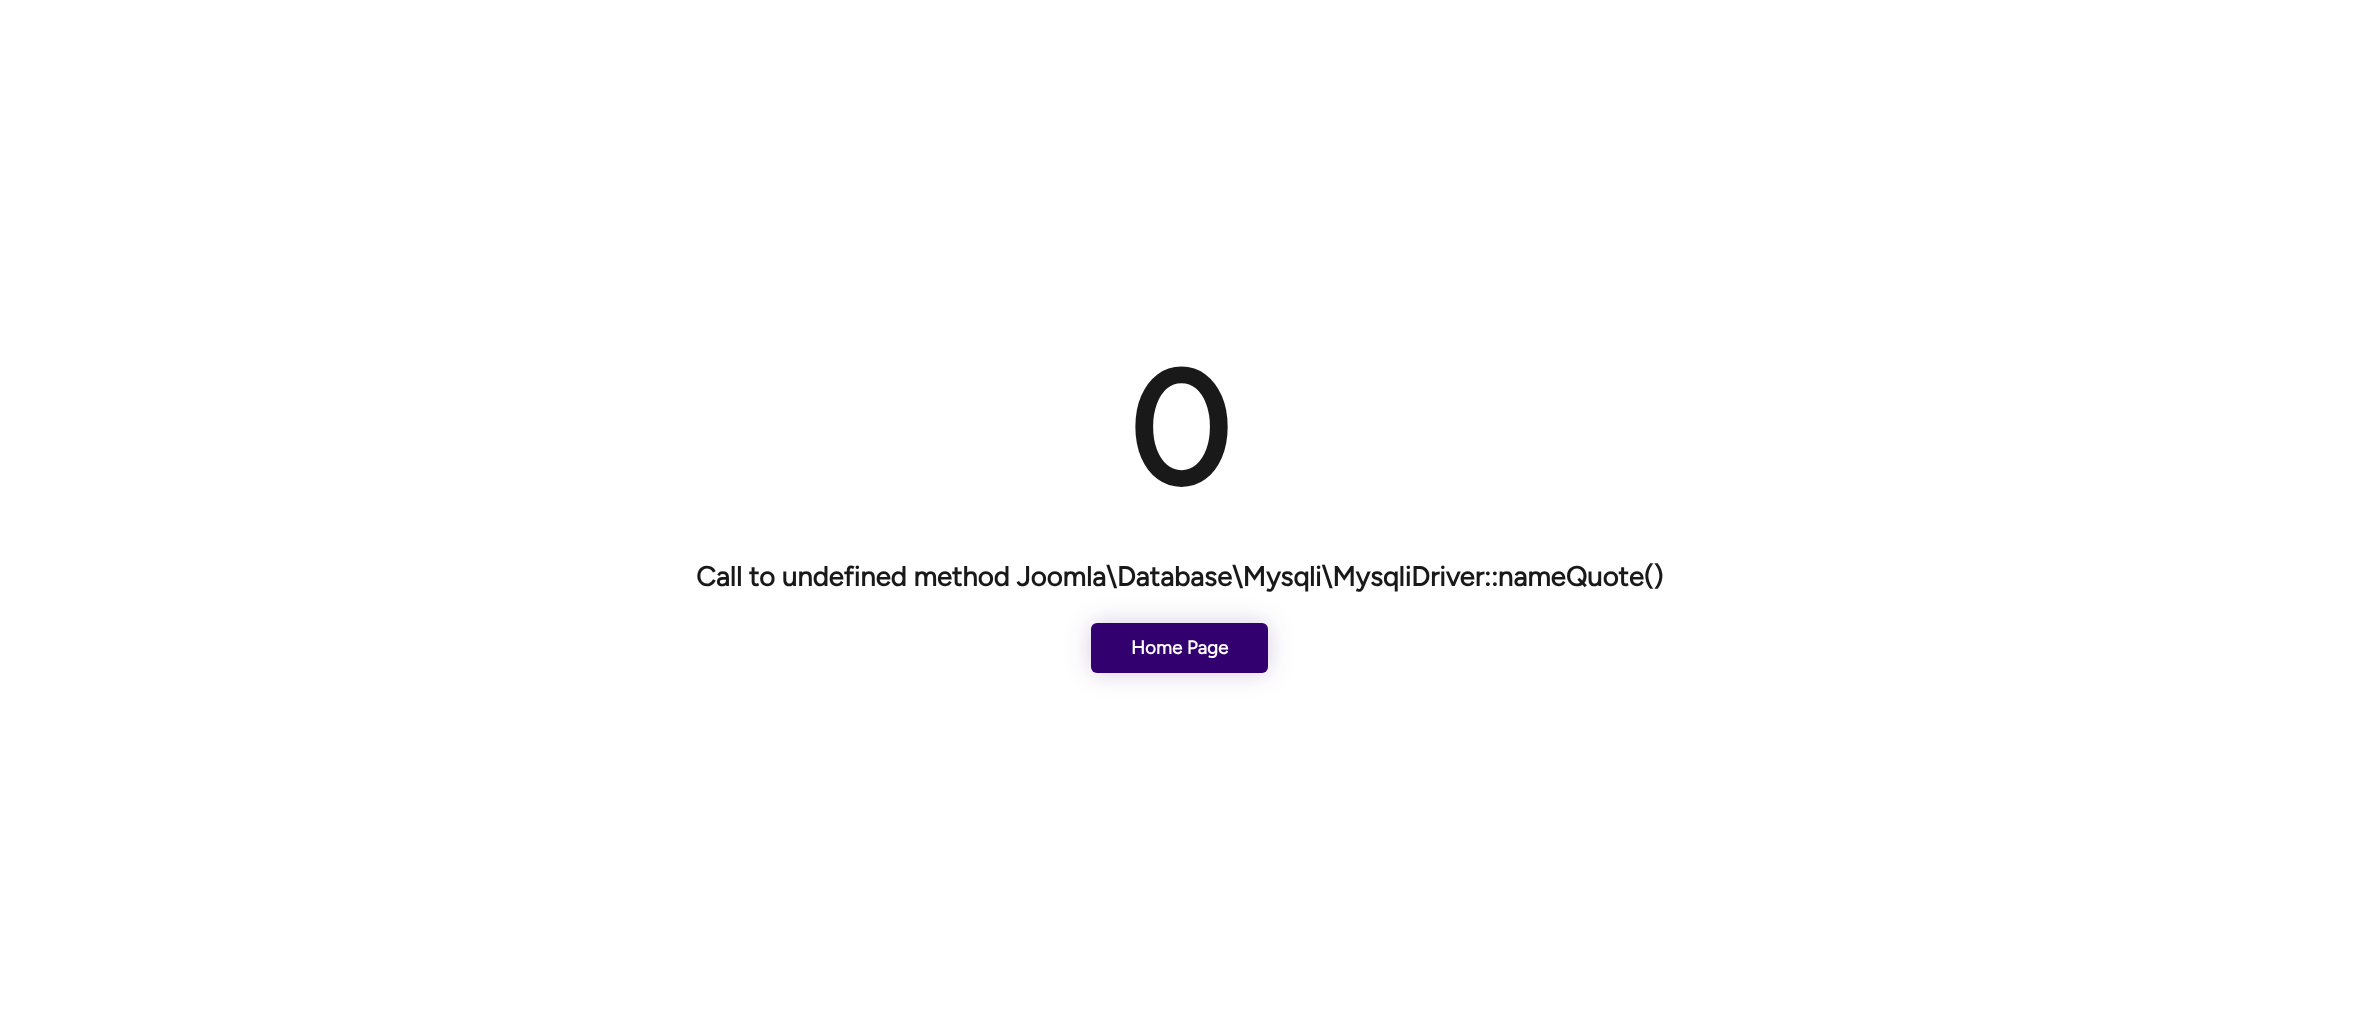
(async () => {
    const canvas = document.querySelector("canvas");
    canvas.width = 2358;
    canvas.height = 1021;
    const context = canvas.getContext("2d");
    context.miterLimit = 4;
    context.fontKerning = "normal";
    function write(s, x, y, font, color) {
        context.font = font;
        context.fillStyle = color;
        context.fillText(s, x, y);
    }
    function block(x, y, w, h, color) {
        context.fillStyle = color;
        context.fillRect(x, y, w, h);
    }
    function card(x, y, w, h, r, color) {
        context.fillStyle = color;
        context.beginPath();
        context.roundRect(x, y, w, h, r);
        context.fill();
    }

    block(0, 0, 2358, 1021, "rgb(255, 255, 255)");
    write("0", 1128, 485, "bold 160px Figtree", "rgb(25, 25, 25)");
    write("Call to undefined method Joomla\\Database\\Mysqli\\MysqliDriver::nameQuote()", 696, 586, "bold 27.5px Figtree", "rgb(25, 25, 25)");
    context.fillStyle = "rgba(51, 0, 111, 0.2)";
    context.filter = "blur(12.5px)";
    context.beginPath();
    context.roundRect(1091, 623, 177, 50, 6);
    context.fill();
    context.filter = "none";
    card(1091, 623, 177, 50, 6, "rgb(51, 0, 111)");
    write("Home Page", 1131, 654, "bold 18.75px Figtree", "rgb(255, 255, 255)");
})();
